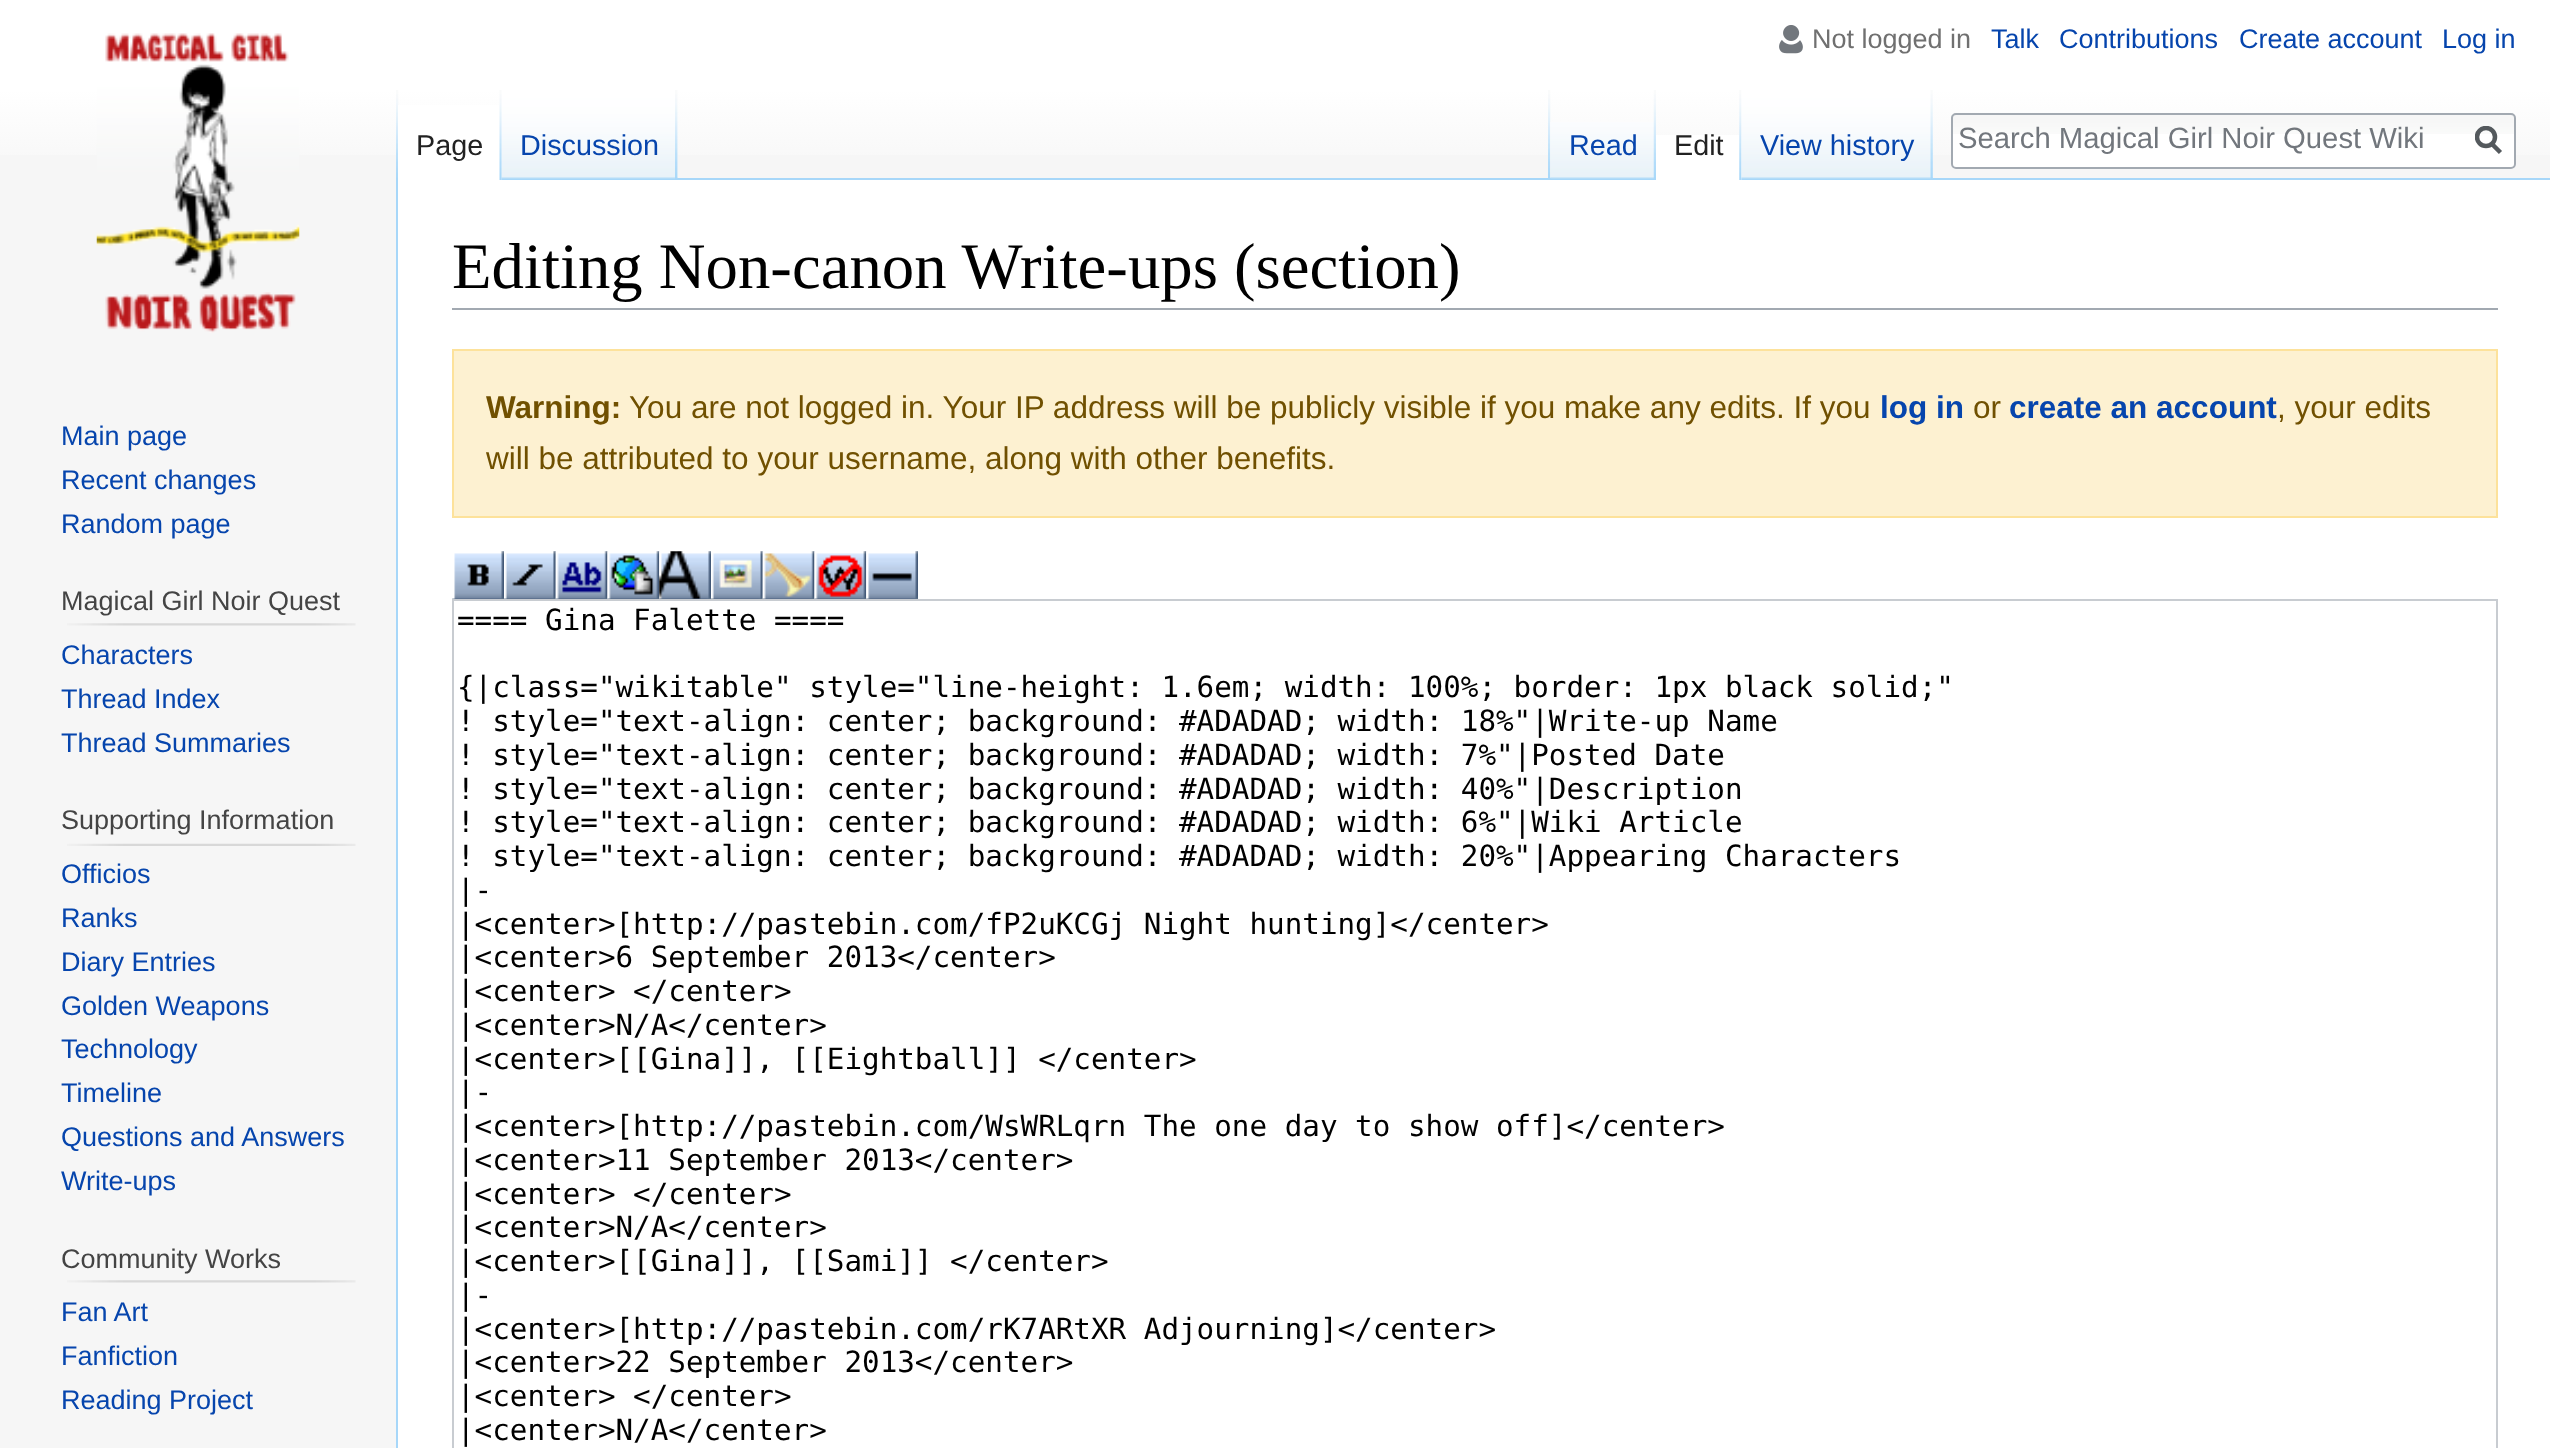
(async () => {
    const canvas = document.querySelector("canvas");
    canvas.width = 2550;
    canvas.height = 1448;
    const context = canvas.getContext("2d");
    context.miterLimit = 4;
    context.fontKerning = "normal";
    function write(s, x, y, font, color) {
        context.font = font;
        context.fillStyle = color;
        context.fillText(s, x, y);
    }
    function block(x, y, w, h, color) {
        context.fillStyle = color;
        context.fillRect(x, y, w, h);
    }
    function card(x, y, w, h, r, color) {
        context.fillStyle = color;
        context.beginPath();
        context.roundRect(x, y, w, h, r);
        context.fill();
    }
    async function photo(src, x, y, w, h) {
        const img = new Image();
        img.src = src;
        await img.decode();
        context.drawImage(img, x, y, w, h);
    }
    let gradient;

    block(0, 0, 2550, 1448, "rgb(246, 246, 246)");
    gradient = context.createLinearGradient(1276, 0, 1276, 180);
    gradient.addColorStop(0.5, "rgb(255, 255, 255)");
    gradient.addColorStop(1, "rgb(246, 246, 246)");
    context.fillStyle = gradient;
    context.fillRect(0, 0, 2550, 155);
    await photo("media/1.png", 1779, 25, 24, 29);
    write("Not logged in", 1812, 48, "27px Liberation Sans", "rgb(112, 112, 112)");
    write("Talk", 1991, 48, "27px Liberation Sans", "rgb(6, 69, 173)");
    write("Contributions", 2059, 48, "27px Liberation Sans", "rgb(6, 69, 173)");
    write("Create account", 2239, 48, "27px Liberation Sans", "rgb(6, 69, 173)");
    write("Log in", 2442, 48, "27px Liberation Sans", "rgb(6, 69, 173)");
    await photo("media/2.png", 396, 90, 3, 88);
    await photo("media/3.png", 677, 90, 1, 88);
    block(398, 105, 104, 75, "rgb(255, 255, 255)");
    await photo("media/4.png", 499, 90, 3, 90);
    write("Page", 416, 155, "28.75px Liberation Sans", "rgb(34, 34, 34)");
    block(677, 178, 1873, 2, "rgb(167, 215, 249)");
    await photo("media/5.png", 501, 90, 177, 90);
    await photo("media/6.png", 675, 90, 3, 89);
    write("Discussion", 520, 155, "28.75px Liberation Sans", "rgb(6, 69, 173)");
    await photo("media/2.png", 1548, 90, 3, 88);
    await photo("media/7.png", 1932, 90, 1, 88);
    await photo("media/8.png", 1550, 122, 104, 57);
    await photo("media/9.png", 1653, 90, 3, 89);
    write("Read", 1569, 155, "28.75px Liberation Sans", "rgb(6, 69, 173)");
    block(1656, 135, 86, 45, "rgb(255, 255, 255)");
    await photo("media/10.png", 1739, 90, 3, 90);
    write("Edit", 1674, 155, "28.75px Liberation Sans", "rgb(34, 34, 34)");
    await photo("media/11.png", 1741, 90, 192, 90);
    await photo("media/12.png", 1930, 90, 3, 89);
    write("View history", 1760, 155, "28.75px Liberation Sans", "rgb(6, 69, 173)");
    card(1951, 113, 565, 56, 5, "rgb(255, 255, 255)");
    await photo("media/13.png", 1951, 115, 563, 19);
    context.beginPath();
    context.roundRect(1952, 114, 563, 54, 4);
    context.strokeStyle = "rgb(162, 169, 177)";
    context.lineWidth = 2;
    context.stroke();
    write("Search Magical Girl Noir Quest Wiki", 1958, 148, "29.25px Liberation Sans", "rgb(114, 119, 125)");
    context.beginPath();
    context.moveTo(2500.5, 152.5);
    context.lineTo(2491.5, 143.5);
    context.strokeStyle = "rgb(84, 89, 93)";
    context.lineWidth = 4.5;
    context.stroke();
    context.save();
    context.beginPath();
    context.rect(2475, 126, 27, 29);
    context.clip();
    context.beginPath();
    context.arc(2486, 137, 9, 0, Math.PI * 2);
    context.stroke();
    context.restore();
    await photo("media/14.png", 96, 33, 204, 300);
    write("Main page", 61, 445, "27px Liberation Sans", "rgb(6, 69, 173)");
    write("Recent changes", 61, 489, "27px Liberation Sans", "rgb(6, 69, 173)");
    write("Random page", 61, 533, "27px Liberation Sans", "rgb(6, 69, 173)");
    write("Magical Girl Noir Quest", 61, 610, "27px Liberation Sans", "rgb(68, 68, 68)");
    await photo("media/15.png", 67, 623, 289, 3);
    write("Characters", 61, 664, "27px Liberation Sans", "rgb(6, 69, 173)");
    write("Thread Index", 61, 708, "27px Liberation Sans", "rgb(6, 69, 173)");
    write("Thread Summaries", 61, 752, "27px Liberation Sans", "rgb(6, 69, 173)");
    write("Supporting Information", 61, 829, "27px Liberation Sans", "rgb(68, 68, 68)");
    await photo("media/16.png", 67, 843, 289, 3);
    write("Officios", 61, 883, "27px Liberation Sans", "rgb(6, 69, 173)");
    write("Ranks", 61, 927, "27px Liberation Sans", "rgb(6, 69, 173)");
    write("Diary Entries", 61, 971, "27px Liberation Sans", "rgb(6, 69, 173)");
    write("Golden Weapons", 61, 1015, "27px Liberation Sans", "rgb(6, 69, 173)");
    write("Technology", 61, 1058, "27px Liberation Sans", "rgb(6, 69, 173)");
    write("Timeline", 61, 1102, "27px Liberation Sans", "rgb(6, 69, 173)");
    write("Questions and Answers", 61, 1146, "27px Liberation Sans", "rgb(6, 69, 173)");
    write("Write-ups", 61, 1190, "27px Liberation Sans", "rgb(6, 69, 173)");
    write("Community Works", 61, 1268, "27px Liberation Sans", "rgb(68, 68, 68)");
    await photo("media/15.png", 67, 1280, 289, 3);
    write("Fan Art", 61, 1321, "27px Liberation Sans", "rgb(6, 69, 173)");
    write("Fanfiction", 61, 1365, "27px Liberation Sans", "rgb(6, 69, 173)");
    write("Reading Project", 61, 1409, "27px Liberation Sans", "rgb(6, 69, 173)");
    block(398, 180, 2152, 1268, "rgb(255, 255, 255)");
    block(396, 178, 2, 1270, "rgb(167, 215, 249)");
    block(452, 308, 2046, 2, "rgb(162, 169, 177)");
    write("Editing Non-canon Write-ups (section)", 452, 288, "64.75px Liberation Serif", "rgb(0, 0, 0)");
    context.fillStyle = "rgb(253, 241, 209)";
    context.beginPath();
    context.rect(453, 350, 2044, 167);
    context.fill();
    context.strokeStyle = "rgb(253, 226, 155)";
    context.lineWidth = 2;
    context.stroke();
    write("Warning:", 486, 418, "bold 31.5px Liberation Sans", "rgb(112, 80, 0)");
    write("You are not logged in. Your IP address will be publicly visible if you make any edits. If you", 629, 418, "31.5px Liberation Sans", "rgb(112, 80, 0)");
    write("log in", 1880, 418, "bold 31.5px Liberation Sans", "rgb(6, 69, 173)");
    write("or", 1973, 418, "31.5px Liberation Sans", "rgb(112, 80, 0)");
    write("create an account", 2009, 418, "bold 31.5px Liberation Sans", "rgb(6, 69, 173)");
    write(", your edits", 2277, 418, "31.5px Liberation Sans", "rgb(112, 80, 0)");
    write("will be attributed to your username, along with other benefits.", 486, 469, "31.5px Liberation Sans", "rgb(112, 80, 0)");
    await photo("media/17.png", 452, 551, 52, 48);
    await photo("media/18.png", 504, 551, 52, 48);
    await photo("media/19.png", 555, 551, 53, 48);
    await photo("media/20.png", 607, 551, 53, 48);
    await photo("media/21.png", 659, 551, 52, 48);
    await photo("media/22.png", 711, 551, 52, 48);
    await photo("media/23.png", 762, 551, 53, 48);
    await photo("media/24.png", 814, 551, 53, 48);
    await photo("media/25.png", 866, 551, 52, 48);
    context.strokeStyle = "rgb(200, 204, 209)";
    context.strokeRect(453, 600, 2044, 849);
    write("==== Gina Falette ====", 457, 630, "29.25px DejaVu Sans Mono", "rgb(0, 0, 0)");
    write("{|class=\"wikitable\" style=\"line-height: 1.6em; width: 100%; border: 1px black solid;\"", 457, 697, "29.25px DejaVu Sans Mono", "rgb(0, 0, 0)");
    write("! style=\"text-align: center; background: #ADADAD; width: 18%\"|Write-up Name", 457, 731, "29.25px DejaVu Sans Mono", "rgb(0, 0, 0)");
    write("! style=\"text-align: center; background: #ADADAD; width: 7%\"|Posted Date", 457, 765, "29.25px DejaVu Sans Mono", "rgb(0, 0, 0)");
    write("! style=\"text-align: center; background: #ADADAD; width: 40%\"|Description", 457, 799, "29.25px DejaVu Sans Mono", "rgb(0, 0, 0)");
    write("! style=\"text-align: center; background: #ADADAD; width: 6%\"|Wiki Article", 457, 832, "29.25px DejaVu Sans Mono", "rgb(0, 0, 0)");
    write("! style=\"text-align: center; background: #ADADAD; width: 20%\"|Appearing Characters", 457, 866, "29.25px DejaVu Sans Mono", "rgb(0, 0, 0)");
    write("|-", 457, 900, "29.25px DejaVu Sans Mono", "rgb(0, 0, 0)");
    write("|<center>[http://pastebin.com/fP2uKCGj Night hunting]<\/center>", 457, 934, "29.25px DejaVu Sans Mono", "rgb(0, 0, 0)");
    write("|<center>6 September 2013<\/center>", 457, 967, "29.25px DejaVu Sans Mono", "rgb(0, 0, 0)");
    write("|<center> <\/center>", 457, 1001, "29.25px DejaVu Sans Mono", "rgb(0, 0, 0)");
    write("|<center>N/A<\/center>", 457, 1035, "29.25px DejaVu Sans Mono", "rgb(0, 0, 0)");
    write("|<center>[[Gina]], [[Eightball]] <\/center>", 457, 1069, "29.25px DejaVu Sans Mono", "rgb(0, 0, 0)");
    write("|-", 457, 1102, "29.25px DejaVu Sans Mono", "rgb(0, 0, 0)");
    write("|<center>[http://pastebin.com/WsWRLqrn The one day to show off]<\/center>", 457, 1136, "29.25px DejaVu Sans Mono", "rgb(0, 0, 0)");
    write("|<center>11 September 2013<\/center>", 457, 1170, "29.25px DejaVu Sans Mono", "rgb(0, 0, 0)");
    write("|<center> <\/center>", 457, 1204, "29.25px DejaVu Sans Mono", "rgb(0, 0, 0)");
    write("|<center>N/A<\/center>", 457, 1237, "29.25px DejaVu Sans Mono", "rgb(0, 0, 0)");
    write("|<center>[[Gina]], [[Sami]] <\/center>", 457, 1271, "29.25px DejaVu Sans Mono", "rgb(0, 0, 0)");
    write("|-", 457, 1305, "29.25px DejaVu Sans Mono", "rgb(0, 0, 0)");
    write("|<center>[http://pastebin.com/rK7ARtXR Adjourning]<\/center>", 457, 1339, "29.25px DejaVu Sans Mono", "rgb(0, 0, 0)");
    write("|<center>22 September 2013<\/center>", 457, 1372, "29.25px DejaVu Sans Mono", "rgb(0, 0, 0)");
    write("|<center> <\/center>", 457, 1406, "29.25px DejaVu Sans Mono", "rgb(0, 0, 0)");
    write("|<center>N/A<\/center>", 457, 1440, "29.25px DejaVu Sans Mono", "rgb(0, 0, 0)");
})();
